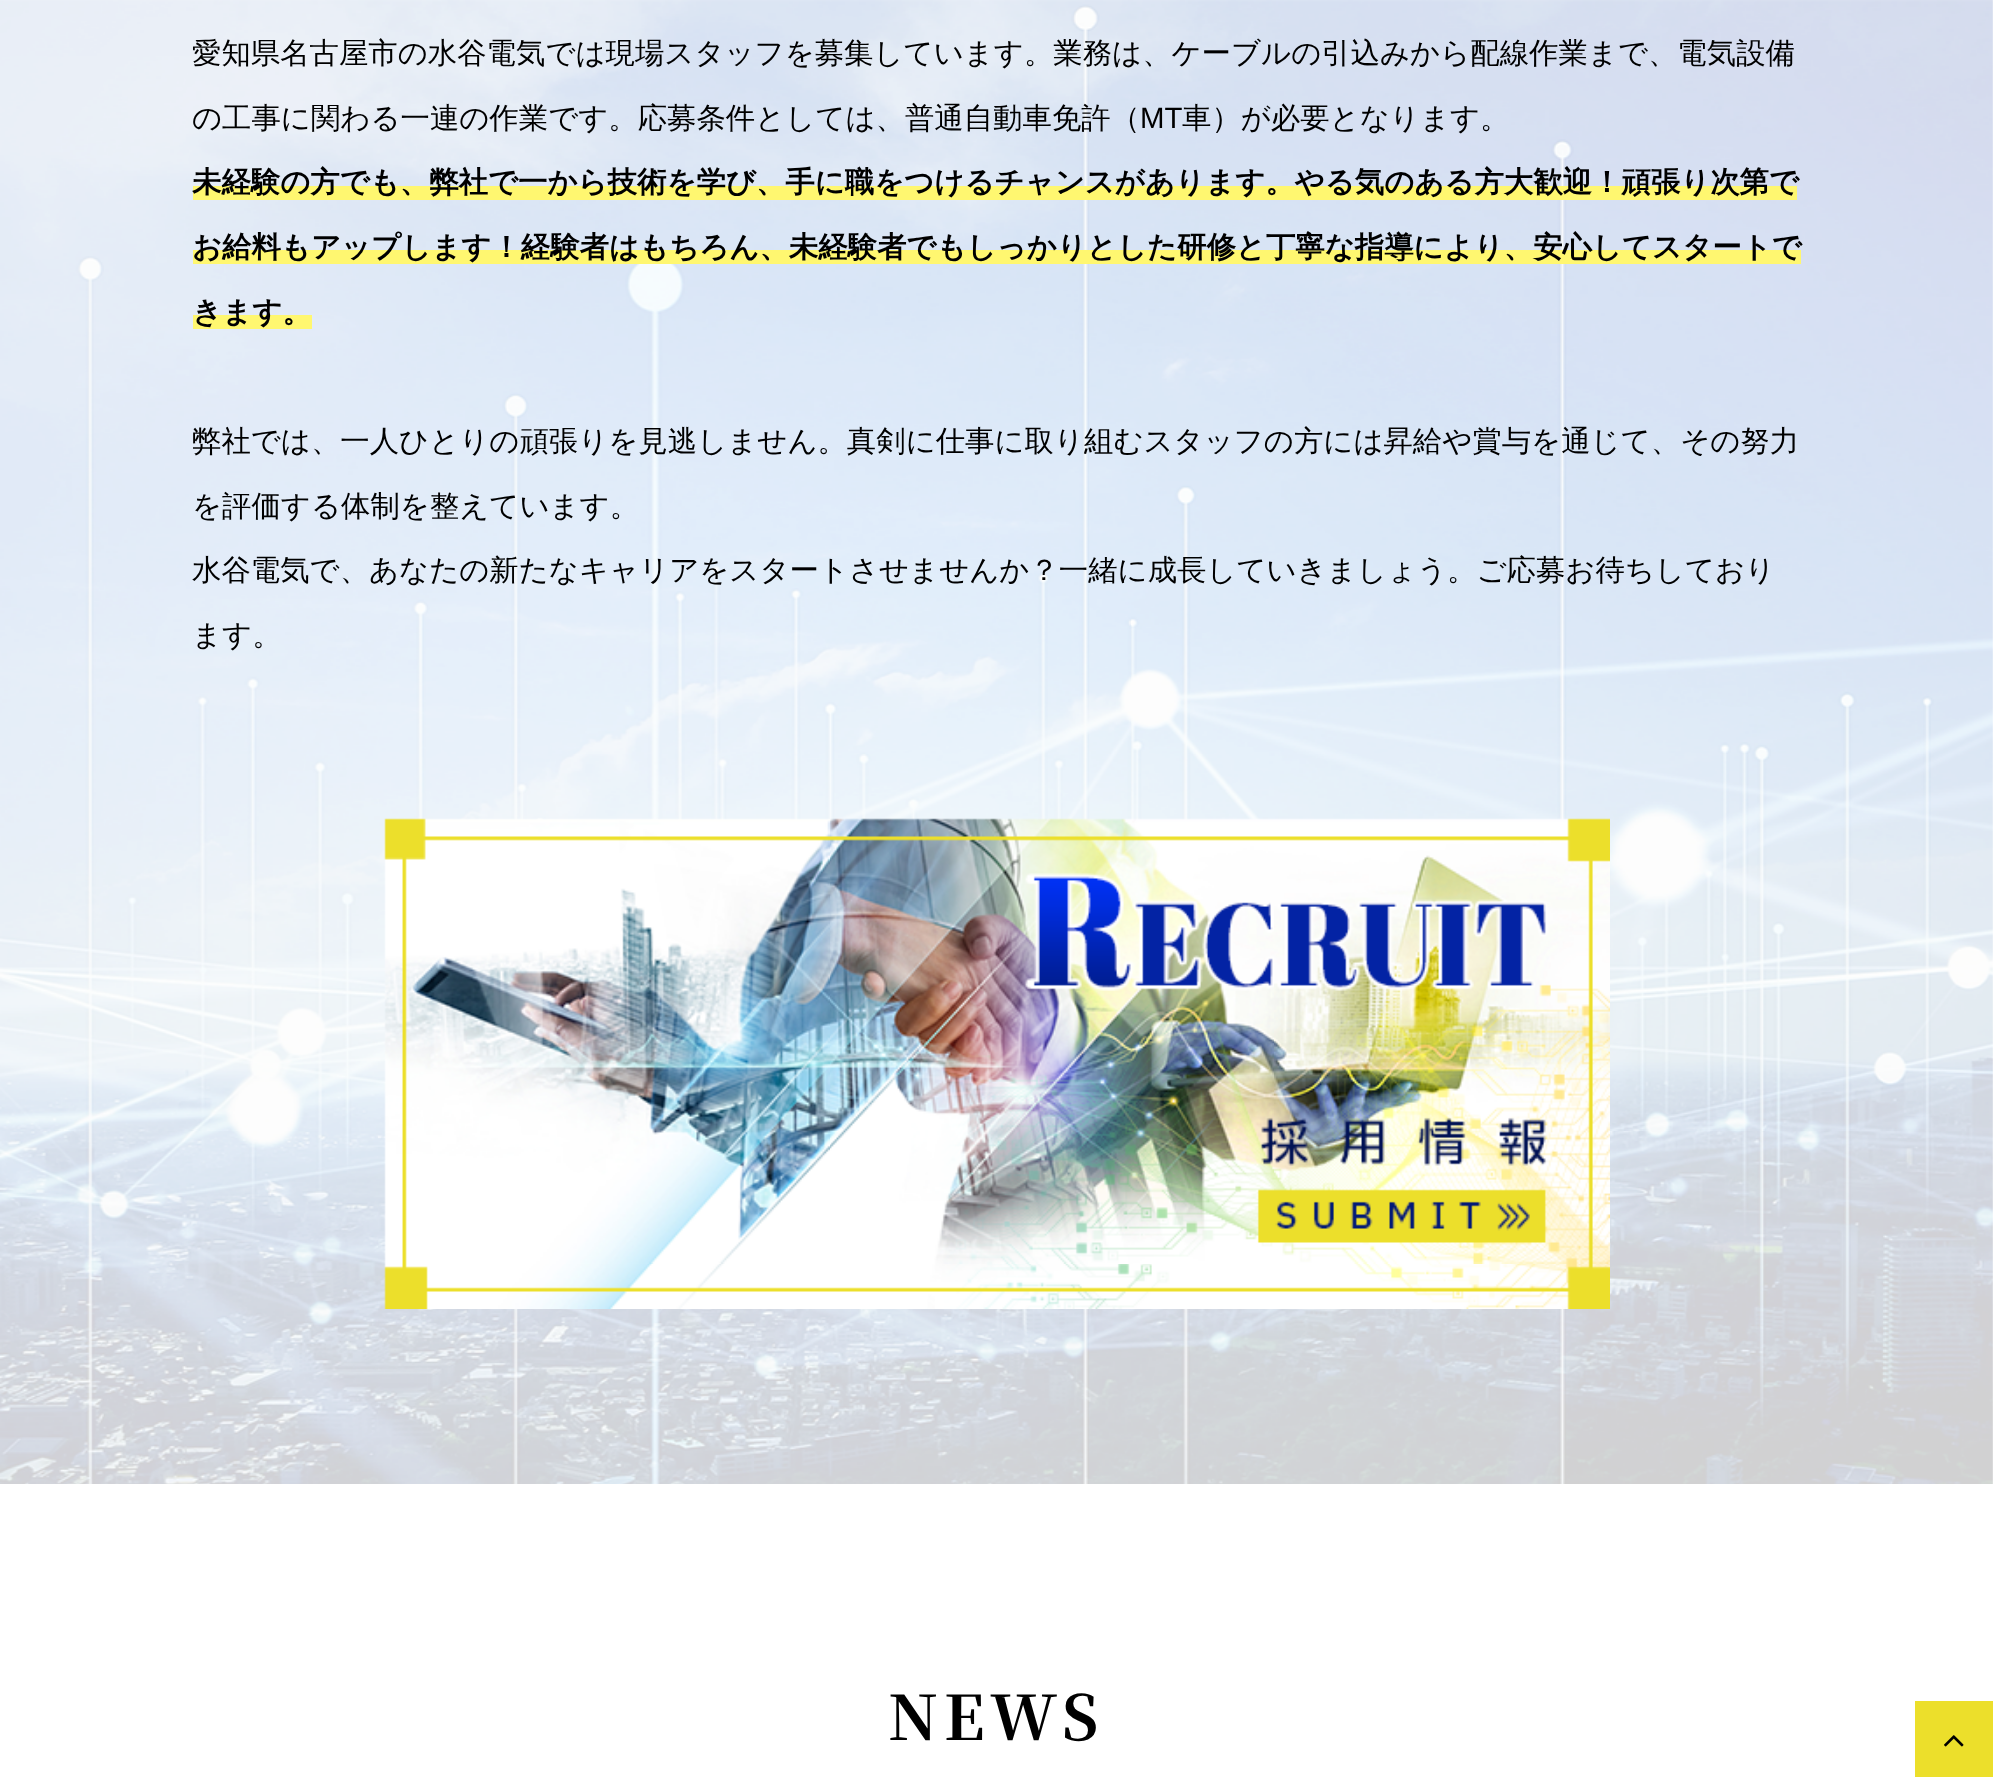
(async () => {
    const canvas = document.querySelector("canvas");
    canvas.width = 1993;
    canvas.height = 1777;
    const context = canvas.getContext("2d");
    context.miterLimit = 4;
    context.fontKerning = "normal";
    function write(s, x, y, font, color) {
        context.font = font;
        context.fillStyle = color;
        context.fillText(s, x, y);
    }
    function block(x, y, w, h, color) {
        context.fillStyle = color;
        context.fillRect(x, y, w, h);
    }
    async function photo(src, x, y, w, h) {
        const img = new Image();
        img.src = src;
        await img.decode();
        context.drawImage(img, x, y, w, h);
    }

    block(0, 0, 1993, 1777, "rgb(255, 255, 255)");
    await photo("media/1.png", 0, 0, 1993, 1484);
    context.save();
    context.beginPath();
    context.rect(193, 23, 1610, 682);
    context.clip();
    write("愛知県名古屋市の水谷電気では現場スタッフを募集しています。業務は、ケーブルの引込みから配線作業まで、電気設備", 192, 63, "500 29.4px WenQuanYi Zen Hei", "rgb(0, 0, 0)");
    write("の工事に関わる一連の作業です。応募条件としては、普通自動車免許（", 192, 128, "500 29.4px WenQuanYi Zen Hei", "rgb(0, 0, 0)");
    context.restore();
    write("MT", 1140, 128, "29.4px Liberation Sans", "rgb(0, 0, 0)");
    write("車）が必要となります。", 1182, 128, "500 29.4px WenQuanYi Zen Hei", "rgb(0, 0, 0)");
    block(193, 186, 1604, 14, "rgb(255, 247, 112)");
    write("未経験の方でも、弊社で一から技術を学び、手に職をつけるチャンスがあります。やる気のある方大歓迎！頑張り次第で", 192, 192, "bold 29.4px WenQuanYi Zen Hei", "rgb(0, 0, 0)");
    block(193, 250, 1608, 14, "rgb(255, 247, 112)");
    write("お給料もアップします！経験者はもちろん、未経験者でもしっかりとした研修と丁寧な指導により、安心してスタートで", 192, 257, "bold 29.4px WenQuanYi Zen Hei", "rgb(0, 0, 0)");
    block(193, 315, 119, 14, "rgb(255, 247, 112)");
    write("きます。", 192, 322, "bold 29.4px WenQuanYi Zen Hei", "rgb(0, 0, 0)");
    context.save();
    context.beginPath();
    context.rect(193, 23, 1610, 682);
    context.clip();
    write("弊社では、一人ひとりの頑張りを見逃しません。真剣に仕事に取り組むスタッフの方には昇給や賞与を通じて、その努力", 192, 451, "500 29.4px WenQuanYi Zen Hei", "rgb(0, 0, 0)");
    context.restore();
    write("を評価する体制を整えています。", 192, 516, "500 29.4px WenQuanYi Zen Hei", "rgb(0, 0, 0)");
    write("水谷電気で、あなたの新たなキャリアをスタートさせませんか？一緒に成長していきましょう。ご応募お待ちしており", 192, 580, "500 29.4px WenQuanYi Zen Hei", "rgb(0, 0, 0)");
    write("ます。", 192, 645, "500 29.4px WenQuanYi Zen Hei", "rgb(0, 0, 0)");
    await photo("media/2.png", 384, 818, 1226, 491);
    context.letterSpacing = "6px";
    write("NEWS", 888, 1740, "bold 61.5px Noto Serif JP", "rgb(0, 0, 0)");
    block(1915, 1701, 78, 76, "rgb(236, 223, 43)");
    await photo("media/3.png", 1944, 1735, 20, 12);
})();
